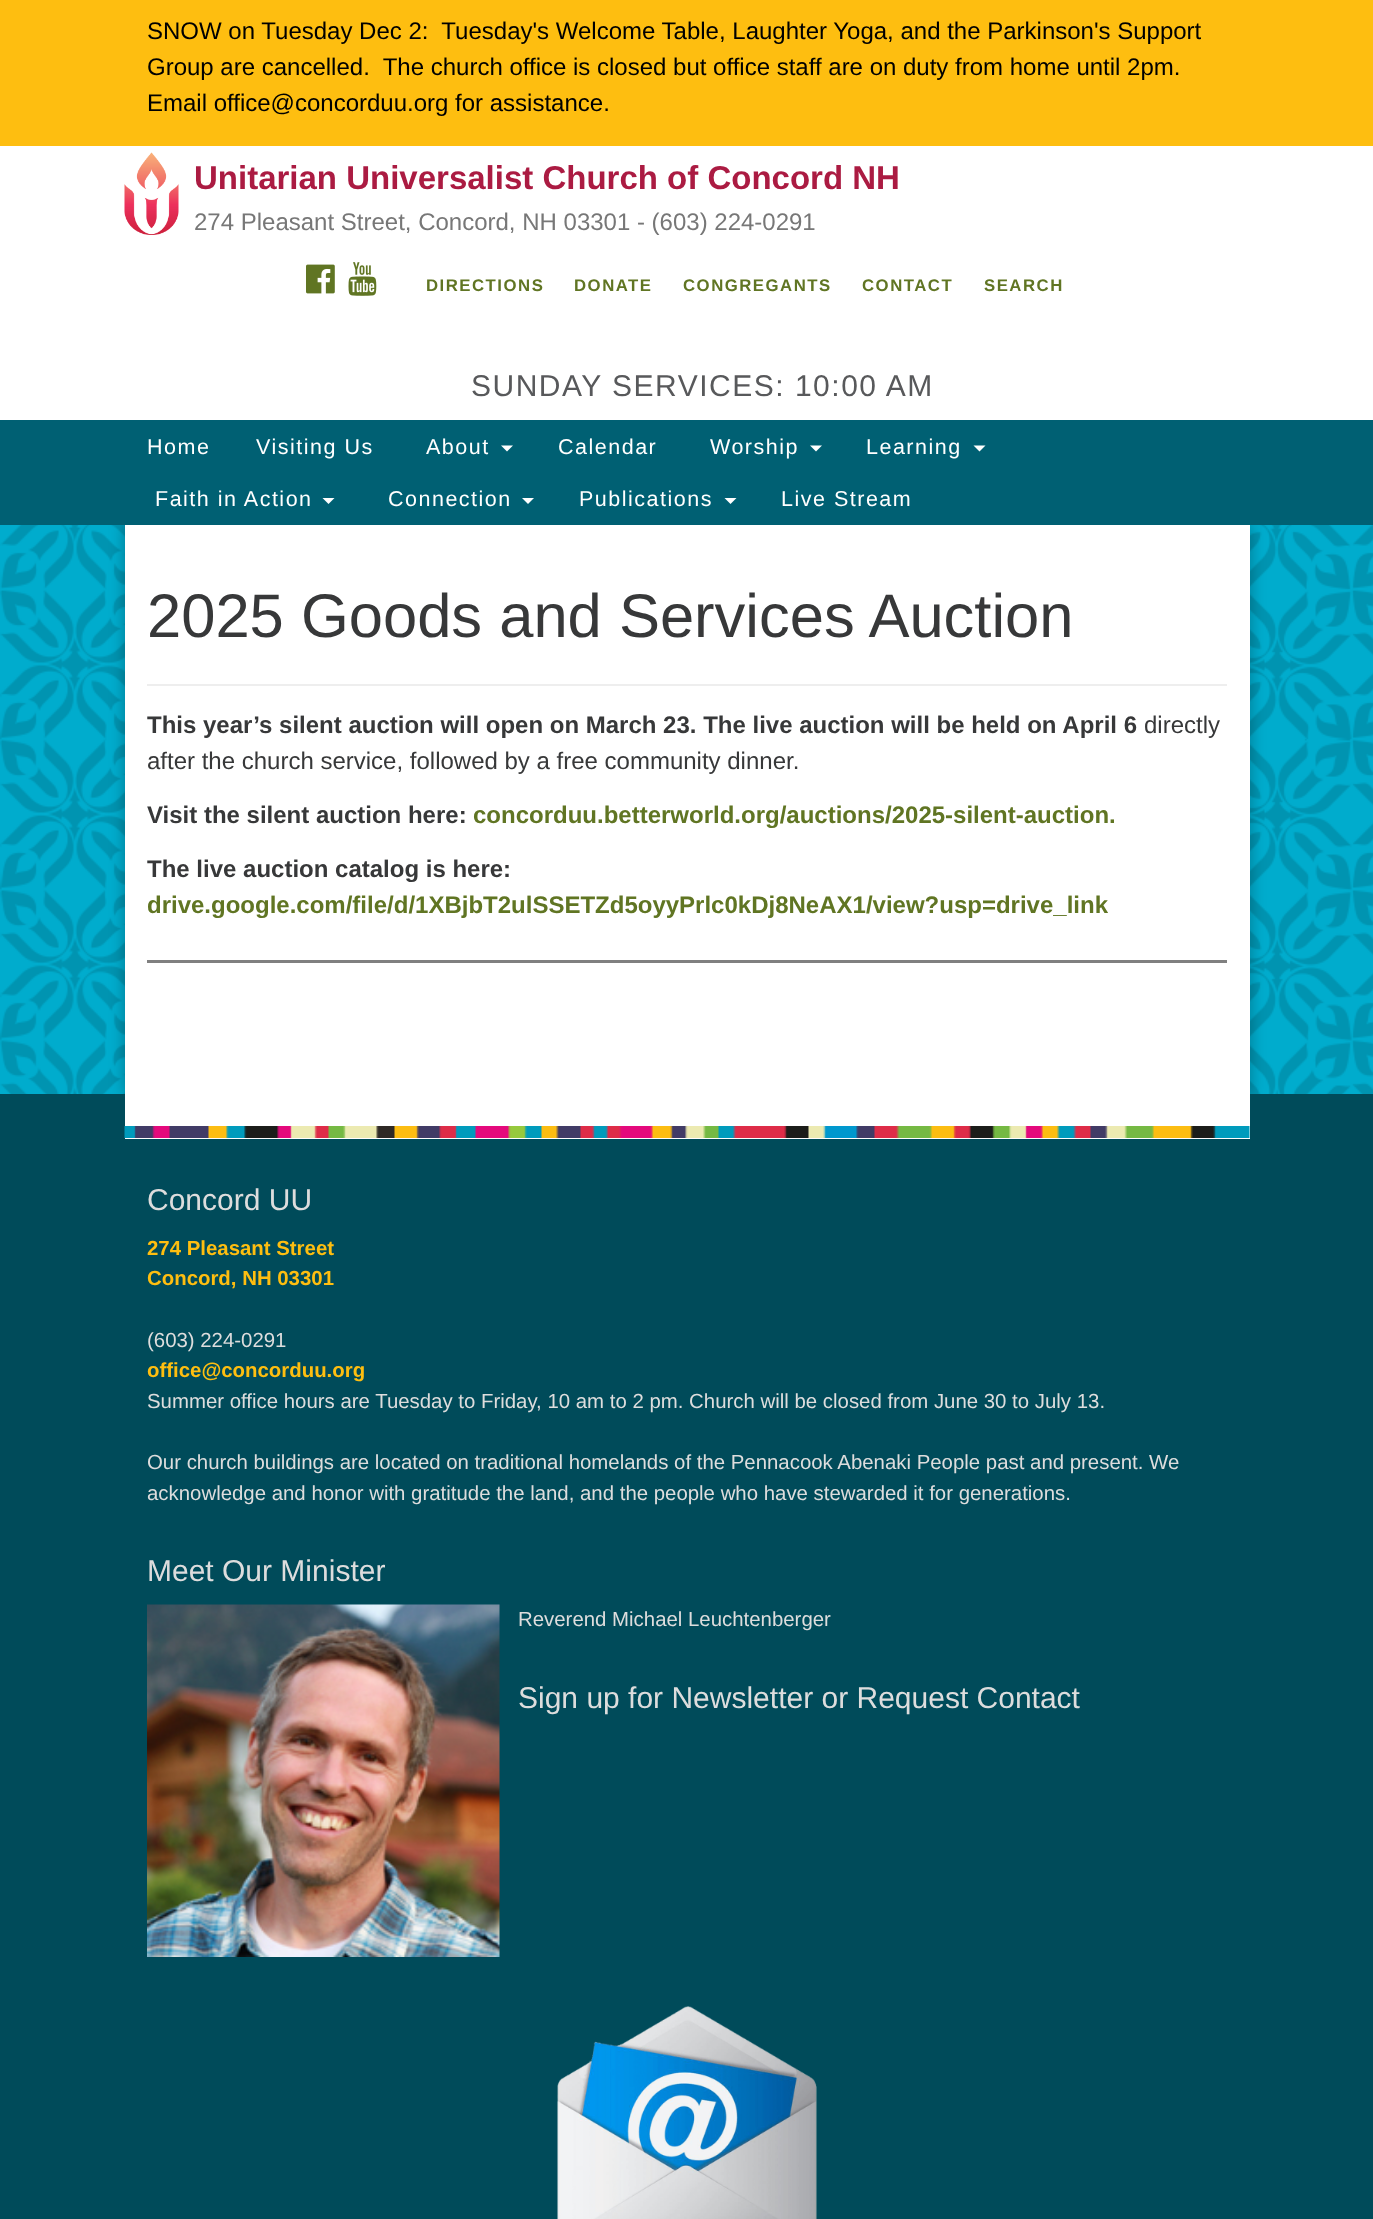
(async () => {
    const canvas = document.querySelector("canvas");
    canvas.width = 1373;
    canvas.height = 2219;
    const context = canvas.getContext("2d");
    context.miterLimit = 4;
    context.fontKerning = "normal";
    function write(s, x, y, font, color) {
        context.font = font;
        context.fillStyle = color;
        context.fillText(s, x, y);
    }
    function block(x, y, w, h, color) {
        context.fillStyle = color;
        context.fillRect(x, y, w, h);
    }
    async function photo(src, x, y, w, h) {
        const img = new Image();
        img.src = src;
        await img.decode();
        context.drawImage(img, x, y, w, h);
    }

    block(0, 0, 1373, 2219, "rgb(255, 255, 255)");
    await photo("media/1.png", 0, 525, 1373, 569);
    block(0, 0, 1373, 146, "rgb(254, 190, 16)");
    write("SNOW on Tuesday Dec 2:  Tuesday's Welcome Table, Laughter Yoga, and the Parkinson's Support", 147, 39, "24px Liberation Sans", "rgb(0, 0, 0)");
    write("Group are cancelled.  The church office is closed but office staff are on duty from home until 2pm.", 147, 75, "24px Liberation Sans", "rgb(0, 0, 0)");
    write("Email office@concorduu.org for assistance.", 147, 111, "24px Liberation Sans", "rgb(0, 0, 0)");
    await photo("media/2.png", 124, 152, 55, 83);
    write("Unitarian Universalist Church of Concord NH", 194, 189, "bold 33px Liberation Sans", "rgb(171, 27, 66)");
    write("274 Pleasant Street, Concord, NH 03301 - (603) 224-0291", 194, 230, "24px Liberation Sans", "rgb(119, 119, 119)");
    await photo("media/3.png", 306, 264, 29, 30);
    await photo("media/4.png", 348, 262, 29, 34);
    context.letterSpacing = "1.5px";
    write("DIRECTIONS", 426, 291, "bold 16.75px Liberation Sans", "rgb(96, 117, 35)");
    write("DONATE", 574, 291, "bold 16.75px Liberation Sans", "rgb(96, 117, 35)");
    write("CONGREGANTS", 683, 291, "bold 16.75px Liberation Sans", "rgb(96, 117, 35)");
    write("CONTACT", 862, 291, "bold 16.75px Liberation Sans", "rgb(96, 117, 35)");
    write("SEARCH", 984, 291, "bold 16.75px Liberation Sans", "rgb(96, 117, 35)");
    write("SUNDAY SERVICES: 10:00 AM", 471, 396, "30px Liberation Sans", "rgb(88, 89, 91)");
    context.fillStyle = "rgba(0, 0, 0, 0.3)";
    context.filter = "blur(7.5px)";
    context.beginPath();
    context.rect(125, 525, 1125, 569);
    context.fill();
    context.filter = "none";
    block(0, 420, 1373, 105, "rgb(0, 96, 115)");
    write("Home", 147, 454, "21.5px Liberation Sans", "rgb(255, 255, 255)");
    write("Visiting Us", 256, 454, "21.5px Liberation Sans", "rgb(255, 255, 255)");
    write("About", 426, 454, "21.5px Liberation Sans", "rgb(255, 255, 255)");
    context.beginPath();
    context.moveTo(501, 445.5);
    context.lineTo(513, 445.5);
    context.lineTo(507, 451.5);
    context.closePath();
    context.fill();
    write("Calendar", 558, 454, "21.5px Liberation Sans", "rgb(255, 255, 255)");
    write("Worship", 710, 454, "21.5px Liberation Sans", "rgb(255, 255, 255)");
    context.beginPath();
    context.moveTo(810, 445.5);
    context.lineTo(822, 445.5);
    context.lineTo(816, 451.5);
    context.closePath();
    context.fill();
    write("Learning", 866, 454, "21.5px Liberation Sans", "rgb(255, 255, 255)");
    context.beginPath();
    context.moveTo(973.5, 445.5);
    context.lineTo(985.5, 445.5);
    context.lineTo(979.5, 451.5);
    context.closePath();
    context.fill();
    write("Faith in Action", 155, 506, "21.5px Liberation Sans", "rgb(255, 255, 255)");
    context.beginPath();
    context.moveTo(322.5, 498);
    context.lineTo(334.5, 498);
    context.lineTo(328.5, 504);
    context.closePath();
    context.fill();
    write("Connection", 388, 506, "21.5px Liberation Sans", "rgb(255, 255, 255)");
    context.beginPath();
    context.moveTo(522, 498);
    context.lineTo(534, 498);
    context.lineTo(528, 504);
    context.closePath();
    context.fill();
    write("Publications", 579, 506, "21.5px Liberation Sans", "rgb(255, 255, 255)");
    context.beginPath();
    context.moveTo(724.5, 498);
    context.lineTo(736.5, 498);
    context.lineTo(730.5, 504);
    context.closePath();
    context.fill();
    write("Live Stream", 781, 506, "21.5px Liberation Sans", "rgb(255, 255, 255)");
    block(125, 525, 1125, 569, "rgb(255, 255, 255)");
    block(147, 684, 1080, 2, "rgb(238, 238, 238)");
    context.letterSpacing = "0px";
    write("2025 Goods and Services Auction", 147, 637, "61.5px Liberation Sans", "rgb(55, 56, 57)");
    write("This year’s silent auction will open on March 23. The live auction will be held on April 6", 147, 733, "bold 24px Liberation Sans", "rgb(55, 56, 57)");
    write("directly", 1144, 733, "24px Liberation Sans", "rgb(55, 56, 57)");
    write("after the church service, followed by a free community dinner.", 147, 769, "24px Liberation Sans", "rgb(55, 56, 57)");
    write("Visit the silent auction here:", 147, 823, "bold 24px Liberation Sans", "rgb(55, 56, 57)");
    write("concorduu.betterworld.org/auctions/2025-silent-auction.", 473, 823, "bold 24px Liberation Sans", "rgb(96, 117, 35)");
    write("The live auction catalog is here:", 147, 877, "bold 24px Liberation Sans", "rgb(55, 56, 57)");
    write("drive.google.com/file/d/1XBjbT2ulSSETZd5oyyPrlc0kDj8NeAX1/view?usp=drive_link", 147, 913, "bold 24px Liberation Sans", "rgb(96, 117, 35)");
    block(147, 960, 1080, 3, "rgb(128, 128, 128)");
    block(0, 1094, 1373, 1125, "rgb(0, 75, 90)");
    block(125, 1094, 1125, 45, "rgb(255, 255, 255)");
    await photo("media/5.png", 124, 1126, 1126, 12);
    write("Concord UU", 147, 1210, "30px Liberation Sans", "rgb(221, 221, 221)");
    write("274 Pleasant Street", 147, 1255, "bold 20.4px Liberation Sans", "rgb(254, 190, 16)");
    write("Concord, NH 03301", 147, 1285, "bold 20.4px Liberation Sans", "rgb(254, 190, 16)");
    write("(603) 224-0291", 147, 1347, "20.4px Liberation Sans", "rgb(221, 221, 221)");
    write("office@concorduu.org", 147, 1377, "bold 20.4px Liberation Sans", "rgb(254, 190, 16)");
    write("Summer office hours are Tuesday to Friday, 10 am to 2 pm. Church will be closed from June 30 to July 13.", 147, 1408, "20.4px Liberation Sans", "rgb(221, 221, 221)");
    write("Our church buildings are located on traditional homelands of the Pennacook Abenaki People past and present. We", 147, 1469, "20.4px Liberation Sans", "rgb(221, 221, 221)");
    write("acknowledge and honor with gratitude the land, and the people who have stewarded it for generations.", 147, 1500, "20.4px Liberation Sans", "rgb(221, 221, 221)");
    write("Meet Our Minister", 147, 1581, "30px Liberation Sans", "rgb(221, 221, 221)");
    await photo("media/6.png", 147, 1604, 353, 353);
    write("Reverend Michael Leuchtenberger", 518, 1626, "20.4px Liberation Sans", "rgb(221, 221, 221)");
    write("Sign up for Newsletter or Request Contact", 518, 1708, "30px Liberation Sans", "rgb(221, 221, 221)");
    await photo("media/7.png", 557, 2006, 260, 213);
})();
